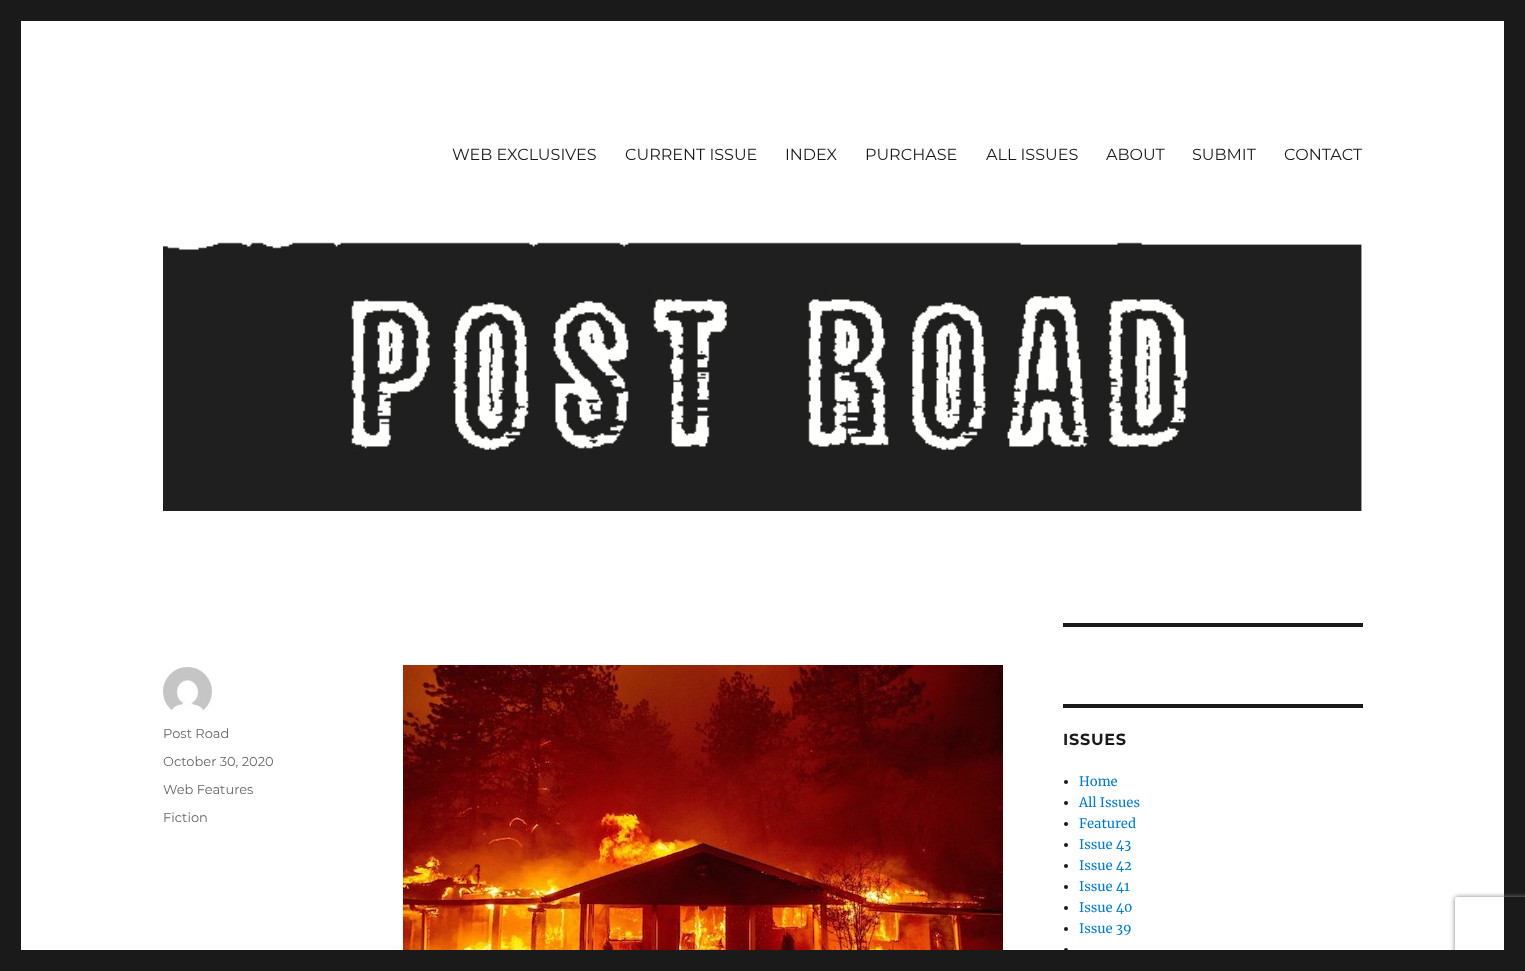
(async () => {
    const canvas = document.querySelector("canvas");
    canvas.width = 1525;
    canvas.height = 971;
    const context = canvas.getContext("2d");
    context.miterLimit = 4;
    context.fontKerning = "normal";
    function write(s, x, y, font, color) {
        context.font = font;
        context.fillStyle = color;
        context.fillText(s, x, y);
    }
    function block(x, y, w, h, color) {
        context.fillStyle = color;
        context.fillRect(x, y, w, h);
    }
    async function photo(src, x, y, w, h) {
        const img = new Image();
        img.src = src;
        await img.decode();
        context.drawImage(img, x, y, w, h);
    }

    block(0, 0, 1525, 971, "rgb(26, 26, 26)");
    block(21, 21, 1483, 929, "rgb(255, 255, 255)");
    write("WEB EXCLUSIVES", 452, 160, "100 16px 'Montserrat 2'", "rgb(26, 26, 26)");
    write("CURRENT ISSUE", 625, 160, "100 16px 'Montserrat 2'", "rgb(26, 26, 26)");
    write("INDEX", 785, 160, "100 16px 'Montserrat 2'", "rgb(26, 26, 26)");
    write("PURCHASE", 865, 160, "100 16px 'Montserrat 2'", "rgb(26, 26, 26)");
    write("ALL ISSUES", 986, 160, "100 16px 'Montserrat 2'", "rgb(26, 26, 26)");
    write("ABOUT", 1106, 160, "100 16px 'Montserrat 2'", "rgb(26, 26, 26)");
    write("SUBMIT", 1192, 160, "100 16px 'Montserrat 2'", "rgb(26, 26, 26)");
    write("CONTACT", 1284, 160, "100 16px 'Montserrat 2'", "rgb(26, 26, 26)");
    await photo("media/1.png", 163, 242, 1199, 269);
    await photo("media/2.png", 163, 667, 49, 45);
    write("Post Road", 163, 738, "100 13px 'Montserrat 2'", "rgb(104, 104, 104)");
    write("October 30, 2020", 163, 766, "100 13px 'Montserrat 2'", "rgb(104, 104, 104)");
    write("Web Features", 163, 794, "100 13px 'Montserrat 2'", "rgb(104, 104, 104)");
    write("Fiction", 163, 822, "100 13px 'Montserrat 2'", "rgb(104, 104, 104)");
    await photo("media/3.png", 403, 665, 600, 285);
    block(1063, 623, 300, 4, "rgb(26, 26, 26)");
    block(1063, 704, 300, 4, "rgb(26, 26, 26)");
    context.letterSpacing = "0.75px";
    write("ISSUES", 1063, 745, "100 16px Montserrat", "rgb(26, 26, 26)");
    context.beginPath();
    context.arc(1066, 782, 2, 0, Math.PI * 2);
    context.fill();
    context.letterSpacing = "0px";
    write("Home", 1079, 786, "13px Merriweather", "rgb(0, 122, 204)");
    context.fillStyle = "rgb(26, 26, 26)";
    context.beginPath();
    context.arc(1066, 803, 2, 0, Math.PI * 2);
    context.fill();
    write("All Issues", 1079, 807, "13px Merriweather", "rgb(0, 122, 204)");
    context.fillStyle = "rgb(26, 26, 26)";
    context.beginPath();
    context.arc(1066, 824, 2, 0, Math.PI * 2);
    context.fill();
    write("Featured", 1079, 828, "13px Merriweather", "rgb(0, 122, 204)");
    context.fillStyle = "rgb(26, 26, 26)";
    context.beginPath();
    context.arc(1066, 845, 2, 0, Math.PI * 2);
    context.fill();
    write("Issue 43", 1079, 849, "13px Merriweather", "rgb(0, 122, 204)");
    context.fillStyle = "rgb(26, 26, 26)";
    context.beginPath();
    context.arc(1066, 866, 2, 0, Math.PI * 2);
    context.fill();
    write("Issue 42", 1079, 870, "13px Merriweather", "rgb(0, 122, 204)");
    context.fillStyle = "rgb(26, 26, 26)";
    context.beginPath();
    context.arc(1066, 887, 2, 0, Math.PI * 2);
    context.fill();
    write("Issue 41", 1079, 891, "13px Merriweather", "rgb(0, 122, 204)");
    context.fillStyle = "rgb(26, 26, 26)";
    context.beginPath();
    context.arc(1066, 908, 2, 0, Math.PI * 2);
    context.fill();
    write("Issue 40", 1079, 912, "13px Merriweather", "rgb(0, 122, 204)");
    context.fillStyle = "rgb(26, 26, 26)";
    context.beginPath();
    context.arc(1066, 929, 2, 0, Math.PI * 2);
    context.fill();
    write("Issue 39", 1079, 933, "13px Merriweather", "rgb(0, 122, 204)");
    context.fillStyle = "rgb(26, 26, 26)";
    context.beginPath();
    context.arc(1066, 950, 2, 0, Math.PI * 2);
    context.fill();
    context.save();
    context.beginPath();
    context.moveTo(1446, 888);
    context.lineTo(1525, 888);
    context.lineTo(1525, 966);
    context.lineTo(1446, 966);
    context.closePath();
    context.moveTo(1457, 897);
    context.lineTo(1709, 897);
    context.bezierCurveTo(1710, 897, 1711, 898, 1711, 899);
    context.lineTo(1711, 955);
    context.bezierCurveTo(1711, 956, 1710, 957, 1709, 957);
    context.lineTo(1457, 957);
    context.bezierCurveTo(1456, 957, 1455, 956, 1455, 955);
    context.lineTo(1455, 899);
    context.bezierCurveTo(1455, 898, 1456, 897, 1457, 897);
    context.closePath();
    context.clip("evenodd");
    context.fillStyle = "rgb(128, 128, 128)";
    context.filter = "blur(2.5px)";
    context.beginPath();
    context.roundRect(1455, 897, 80, 60, 2);
    context.fill();
    context.filter = "none";
    context.restore();
    block(1450, 950, 75, 12, "rgb(26, 26, 26)");
})();
